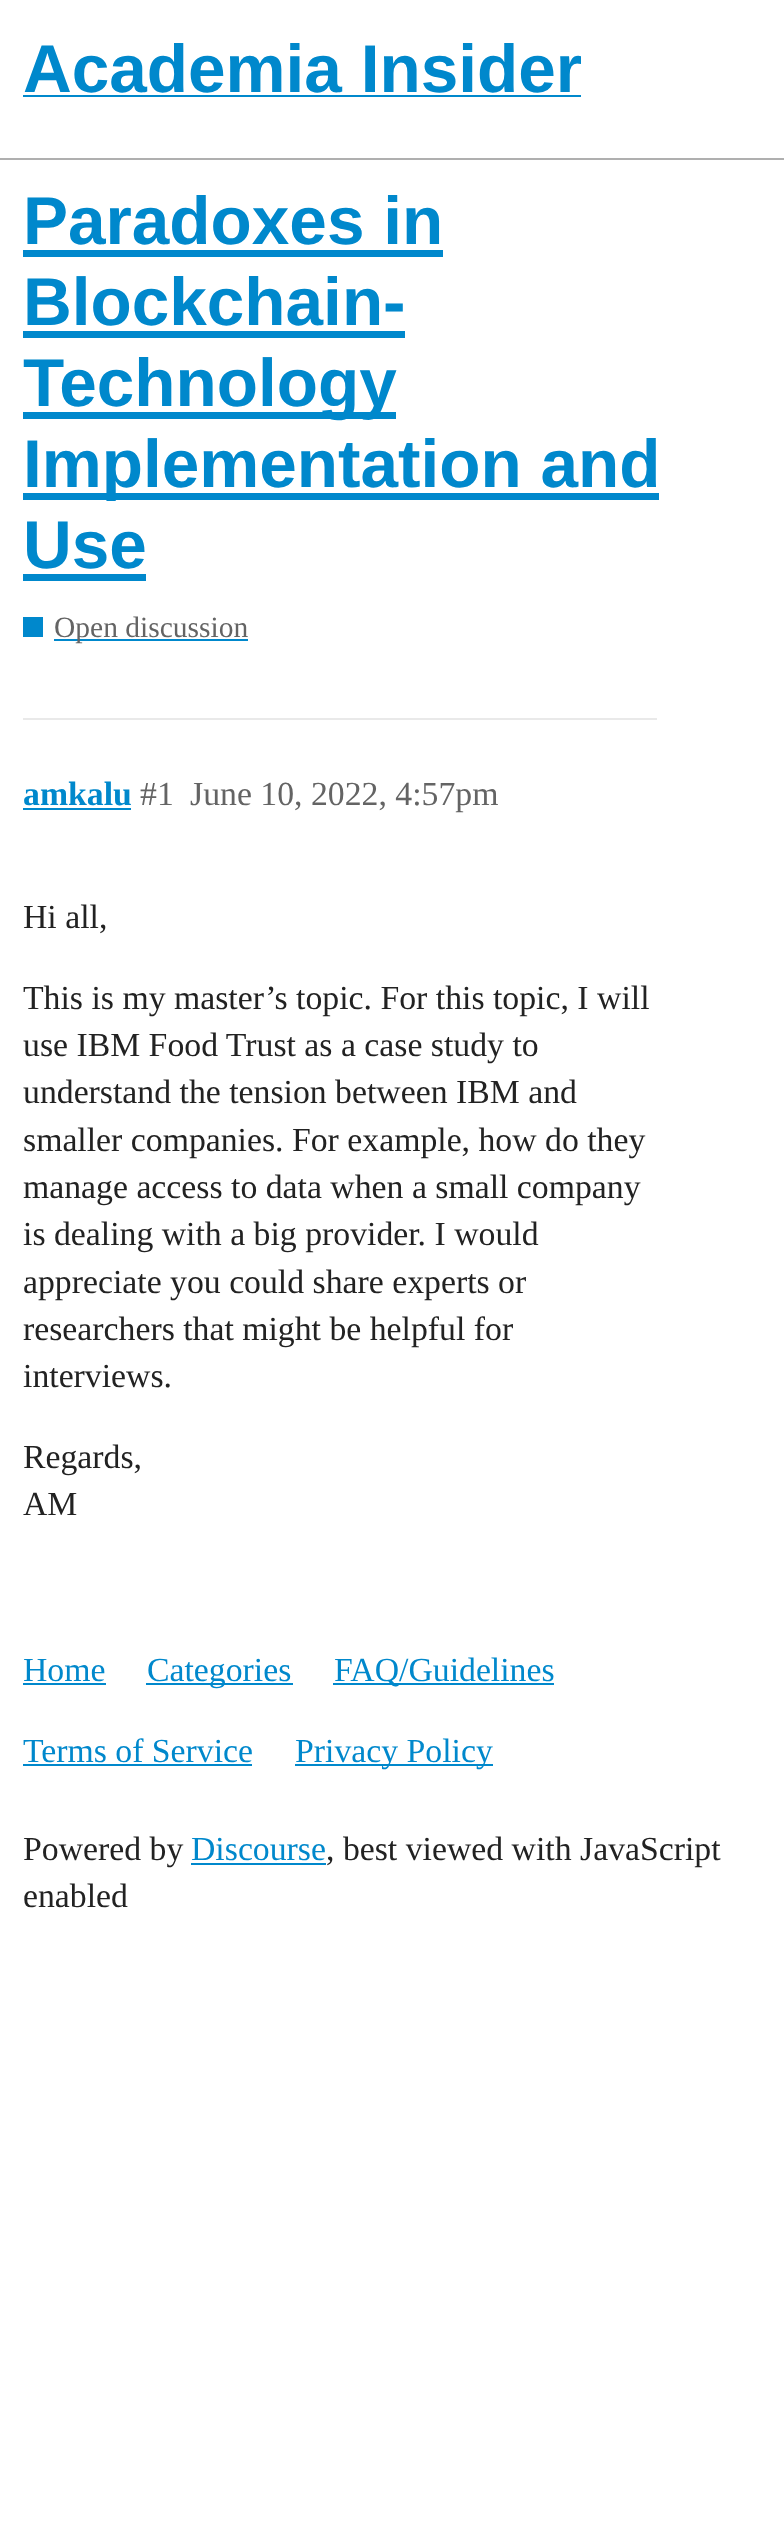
(async () => {
    const canvas = document.querySelector("canvas");
    canvas.width = 784;
    canvas.height = 2530;
    const context = canvas.getContext("2d");
    context.miterLimit = 4;
    context.fontKerning = "normal";
    function write(s, x, y, font, color) {
        context.font = font;
        context.fillStyle = color;
        context.fillText(s, x, y);
    }
    function block(x, y, w, h, color) {
        context.fillStyle = color;
        context.fillRect(x, y, w, h);
    }

    block(0, 0, 784, 2530, "rgb(255, 255, 255)");
    block(0, 158, 784, 2, "rgb(175, 175, 175)");
    write("Academia Insider", 23, 92, "bold 67.5px Liberation Sans", "rgb(0, 136, 204)");
    block(23, 95, 558, 2, "rgb(0, 136, 204)");
    write("Paradoxes in", 23, 244, "bold 67.5px Liberation Sans", "rgb(0, 136, 204)");
    block(23, 250, 420, 7, "rgb(0, 136, 204)");
    write("Blockchain-", 23, 325, "bold 67.5px Liberation Sans", "rgb(0, 136, 204)");
    block(23, 331, 382, 7, "rgb(0, 136, 204)");
    block(23, 412, 373, 7, "rgb(0, 136, 204)");
    write("Technology", 23, 406, "bold 67.5px Liberation Sans", "rgb(0, 136, 204)");
    block(23, 493, 636, 7, "rgb(0, 136, 204)");
    write("Implementation and", 23, 487, "bold 67.5px Liberation Sans", "rgb(0, 136, 204)");
    write("Use", 23, 568, "bold 67.5px Liberation Sans", "rgb(0, 136, 204)");
    block(23, 574, 123, 7, "rgb(0, 136, 204)");
    block(23, 617, 20, 20, "rgb(0, 136, 204)");
    block(54, 639, 194, 2, "rgb(0, 136, 204)");
    write("Open discussion", 54, 637, "29.5px Liberation Serif", "rgb(100, 100, 100)");
    block(23, 718, 634, 2, "rgb(233, 233, 233)");
    write("amkalu", 23, 805, "bold 33.75px Liberation Serif", "rgb(0, 136, 204)");
    block(23, 808, 108, 2, "rgb(0, 136, 204)");
    write("#1", 140, 805, "33.75px Liberation Serif", "rgb(100, 100, 100)");
    write("June 10, 2022, 4:57pm", 190, 805, "33.75px Liberation Serif", "rgb(100, 100, 100)");
    write("Hi all,", 23, 928, "33.75px Liberation Serif", "rgb(34, 34, 34)");
    write("This is my master’s topic. For this topic, I will", 23, 1009, "33.75px Liberation Serif", "rgb(34, 34, 34)");
    write("use IBM Food Trust as a case study to", 23, 1056, "33.75px Liberation Serif", "rgb(34, 34, 34)");
    write("understand the tension between IBM and", 23, 1103, "33.75px Liberation Serif", "rgb(34, 34, 34)");
    write("smaller companies. For example, how do they", 23, 1151, "33.75px Liberation Serif", "rgb(34, 34, 34)");
    write("manage access to data when a small company", 23, 1198, "33.75px Liberation Serif", "rgb(34, 34, 34)");
    write("is dealing with a big provider. I would", 23, 1245, "33.75px Liberation Serif", "rgb(34, 34, 34)");
    write("appreciate you could share experts or", 23, 1293, "33.75px Liberation Serif", "rgb(34, 34, 34)");
    write("researchers that might be helpful for", 23, 1340, "33.75px Liberation Serif", "rgb(34, 34, 34)");
    write("interviews.", 23, 1387, "33.75px Liberation Serif", "rgb(34, 34, 34)");
    write("Regards,", 23, 1468, "33.75px Liberation Serif", "rgb(34, 34, 34)");
    write("AM", 23, 1515, "33.75px Liberation Serif", "rgb(34, 34, 34)");
    write("Home", 23, 1681, "33.75px Liberation Serif", "rgb(0, 136, 204)");
    block(23, 1683, 83, 2, "rgb(0, 136, 204)");
    block(146, 1683, 147, 2, "rgb(0, 136, 204)");
    write("Categories", 147, 1681, "33.75px Liberation Serif", "rgb(0, 136, 204)");
    block(333, 1683, 221, 2, "rgb(0, 136, 204)");
    write("FAQ/Guidelines", 334, 1681, "33.75px Liberation Serif", "rgb(0, 136, 204)");
    write("Terms of Service", 23, 1762, "33.75px Liberation Serif", "rgb(0, 136, 204)");
    block(23, 1764, 229, 2, "rgb(0, 136, 204)");
    block(295, 1764, 198, 2, "rgb(0, 136, 204)");
    write("Privacy Policy", 295, 1762, "33.75px Liberation Serif", "rgb(0, 136, 204)");
    write("Powered by", 23, 1860, "33.75px Liberation Serif", "rgb(34, 34, 34)");
    write("Discourse", 191, 1860, "33.75px Liberation Serif", "rgb(0, 136, 204)");
    block(191, 1863, 135, 2, "rgb(0, 136, 204)");
    write(", best viewed with JavaScript", 326, 1860, "33.75px Liberation Serif", "rgb(34, 34, 34)");
    write("enabled", 23, 1907, "33.75px Liberation Serif", "rgb(34, 34, 34)");
})();
